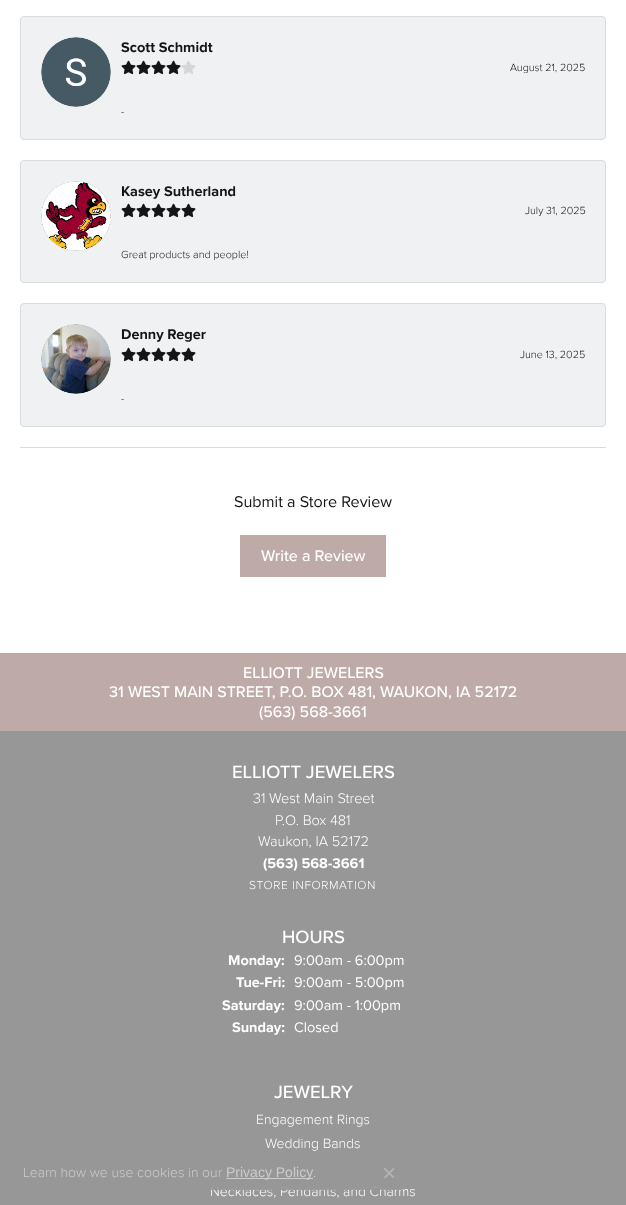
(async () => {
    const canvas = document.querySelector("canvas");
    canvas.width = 626;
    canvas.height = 1205;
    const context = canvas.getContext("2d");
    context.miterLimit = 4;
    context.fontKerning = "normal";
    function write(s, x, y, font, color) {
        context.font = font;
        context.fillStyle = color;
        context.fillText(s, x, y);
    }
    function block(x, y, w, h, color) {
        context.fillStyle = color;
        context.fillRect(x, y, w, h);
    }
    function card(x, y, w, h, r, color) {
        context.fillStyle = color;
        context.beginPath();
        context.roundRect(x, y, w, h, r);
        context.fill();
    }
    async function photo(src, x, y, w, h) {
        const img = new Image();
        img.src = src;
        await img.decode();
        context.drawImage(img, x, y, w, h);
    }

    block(0, 0, 626, 1205, "rgb(151, 151, 151)");
    block(0, 0, 626, 653, "rgb(255, 255, 255)");
    block(20, 447, 586, 1, "rgb(217, 219, 221)");
    context.fillStyle = "rgb(240, 241, 242)";
    context.beginPath();
    context.roundRect(20.5, 16.5, 585, 123, 3.5);
    context.fill();
    context.strokeStyle = "rgb(217, 219, 221)";
    context.stroke();
    await photo("media/1.png", 41, 37, 70, 70);
    write("Scott Schmidt", 121, 52, "bold 14.5px Proxima Nova", "rgb(21, 21, 21)");
    await photo("media/2.png", 121, 60, 15, 15);
    await photo("media/2.png", 136, 60, 15, 15);
    await photo("media/2.png", 151, 60, 15, 15);
    await photo("media/2.png", 166, 60, 15, 15);
    await photo("media/3.png", 181, 60, 15, 14);
    write("August 21, 2025", 510, 71, "300 10.75px Proxima Nova", "rgb(21, 21, 21)");
    write("-", 121, 115, "300 10.75px Proxima Nova", "rgb(21, 21, 21)");
    context.fillStyle = "rgb(240, 241, 242)";
    context.beginPath();
    context.roundRect(20.5, 160.5, 585, 122, 3.5);
    context.fill();
    context.stroke();
    await photo("media/4.png", 41, 181, 70, 70);
    write("Kasey Sutherland", 121, 196, "bold 14.5px Proxima Nova", "rgb(21, 21, 21)");
    await photo("media/2.png", 121, 203, 15, 15);
    await photo("media/2.png", 136, 203, 15, 15);
    await photo("media/2.png", 151, 203, 15, 15);
    await photo("media/2.png", 166, 203, 15, 15);
    await photo("media/2.png", 181, 203, 15, 15);
    write("July 31, 2025", 525, 214, "300 10.75px Proxima Nova", "rgb(21, 21, 21)");
    write("Great products and people!", 121, 258, "300 10.75px Proxima Nova", "rgb(21, 21, 21)");
    context.fillStyle = "rgb(240, 241, 242)";
    context.beginPath();
    context.roundRect(20.5, 303.5, 585, 123, 3.5);
    context.fill();
    context.stroke();
    await photo("media/5.png", 41, 324, 70, 70);
    write("Denny Reger", 121, 339, "bold 14.5px Proxima Nova", "rgb(21, 21, 21)");
    await photo("media/2.png", 121, 347, 15, 15);
    await photo("media/2.png", 136, 347, 15, 15);
    await photo("media/2.png", 151, 347, 15, 15);
    await photo("media/2.png", 166, 347, 15, 15);
    await photo("media/2.png", 181, 347, 15, 15);
    write("June 13, 2025", 520, 358, "300 10.75px Proxima Nova", "rgb(21, 21, 21)");
    write("-", 121, 402, "300 10.75px Proxima Nova", "rgb(21, 21, 21)");
    write("Submit a Store Review", 234, 507, "16.1px Proxima Nova", "rgb(21, 21, 21)");
    block(240, 535, 146, 42, "rgb(190, 170, 167)");
    write("Write a Review", 261, 561, "500 16px Proxima Nova", "rgb(255, 255, 255)");
    block(0, 653, 626, 78, "rgb(190, 170, 167)");
    write("ELLIOTT JEWELERS", 243, 678, "500 16px Proxima Nova", "rgb(255, 255, 255)");
    write("31 WEST MAIN STREET, P.O. BOX 481, WAUKON, IA 52172", 109, 697, "500 16px Proxima Nova", "rgb(255, 255, 255)");
    write("(563) 568-3661", 259, 717, "500 16px Proxima Nova", "rgb(255, 255, 255)");
    write("ELLIOTT JEWELERS", 232, 778, "500 18.5px Proxima Nova", "rgb(255, 255, 255)");
    write("31 West Main Street", 253, 803, "300 14.5px Proxima Nova", "rgb(255, 255, 255)");
    write("P.O. Box 481", 275, 825, "300 14.5px Proxima Nova", "rgb(255, 255, 255)");
    write("Waukon, IA 52172", 258, 846, "300 14.5px Proxima Nova", "rgb(255, 255, 255)");
    write("(563) 568-3661", 263, 868, "bold 14.5px Proxima Nova", "rgb(255, 255, 255)");
    context.letterSpacing = "0.6px";
    write("STORE INFORMATION", 249, 889, "300 12px Proxima Nova", "rgb(255, 255, 255)");
    context.letterSpacing = "0px";
    write("HOURS", 282, 943, "500 18.5px Proxima Nova", "rgb(255, 255, 255)");
    write("Monday:", 228, 965, "bold 14.5px Proxima Nova", "rgb(255, 255, 255)");
    write("9:00am - 6:00pm", 294, 965, "14.5px Proxima Nova", "rgb(255, 255, 255)");
    write("Tue-Fri:", 236, 987, "bold 14.5px Proxima Nova", "rgb(255, 255, 255)");
    write("9:00am - 5:00pm", 294, 987, "14.5px Proxima Nova", "rgb(255, 255, 255)");
    write("Saturday:", 222, 1010, "bold 14.5px Proxima Nova", "rgb(255, 255, 255)");
    write("9:00am - 1:00pm", 294, 1010, "14.5px Proxima Nova", "rgb(255, 255, 255)");
    write("Sunday:", 232, 1032, "bold 14.5px Proxima Nova", "rgb(255, 255, 255)");
    write("Closed", 294, 1032, "14.5px Proxima Nova", "rgb(255, 255, 255)");
    write("JEWELRY", 274, 1098, "500 18.5px Proxima Nova", "rgb(255, 255, 255)");
    write("Engagement Rings", 256, 1124, "300 14px Proxima Nova", "rgb(255, 255, 255)");
    write("Wedding Bands", 265, 1148, "300 14px Proxima Nova", "rgb(255, 255, 255)");
    write("Necklaces, Pendants, and Charms", 210, 1196, "300 14px Proxima Nova", "rgb(255, 255, 255)");
    card(15, 1157, 390, 33, 4, "rgba(151, 151, 151, 0.9)");
    write("Learn how we use cookies in our", 23, 1177, "300 14px Proxima Nova", "rgb(204, 204, 204)");
    block(226, 1178, 87, 1, "rgb(204, 204, 204)");
    write("Privacy Policy", 226, 1177, "14px Liberation Sans", "rgb(204, 204, 204)");
    write(".", 313, 1177, "300 14px Proxima Nova", "rgb(204, 204, 204)");
    await photo("media/6.png", 384, 1168, 11, 11);
})();
